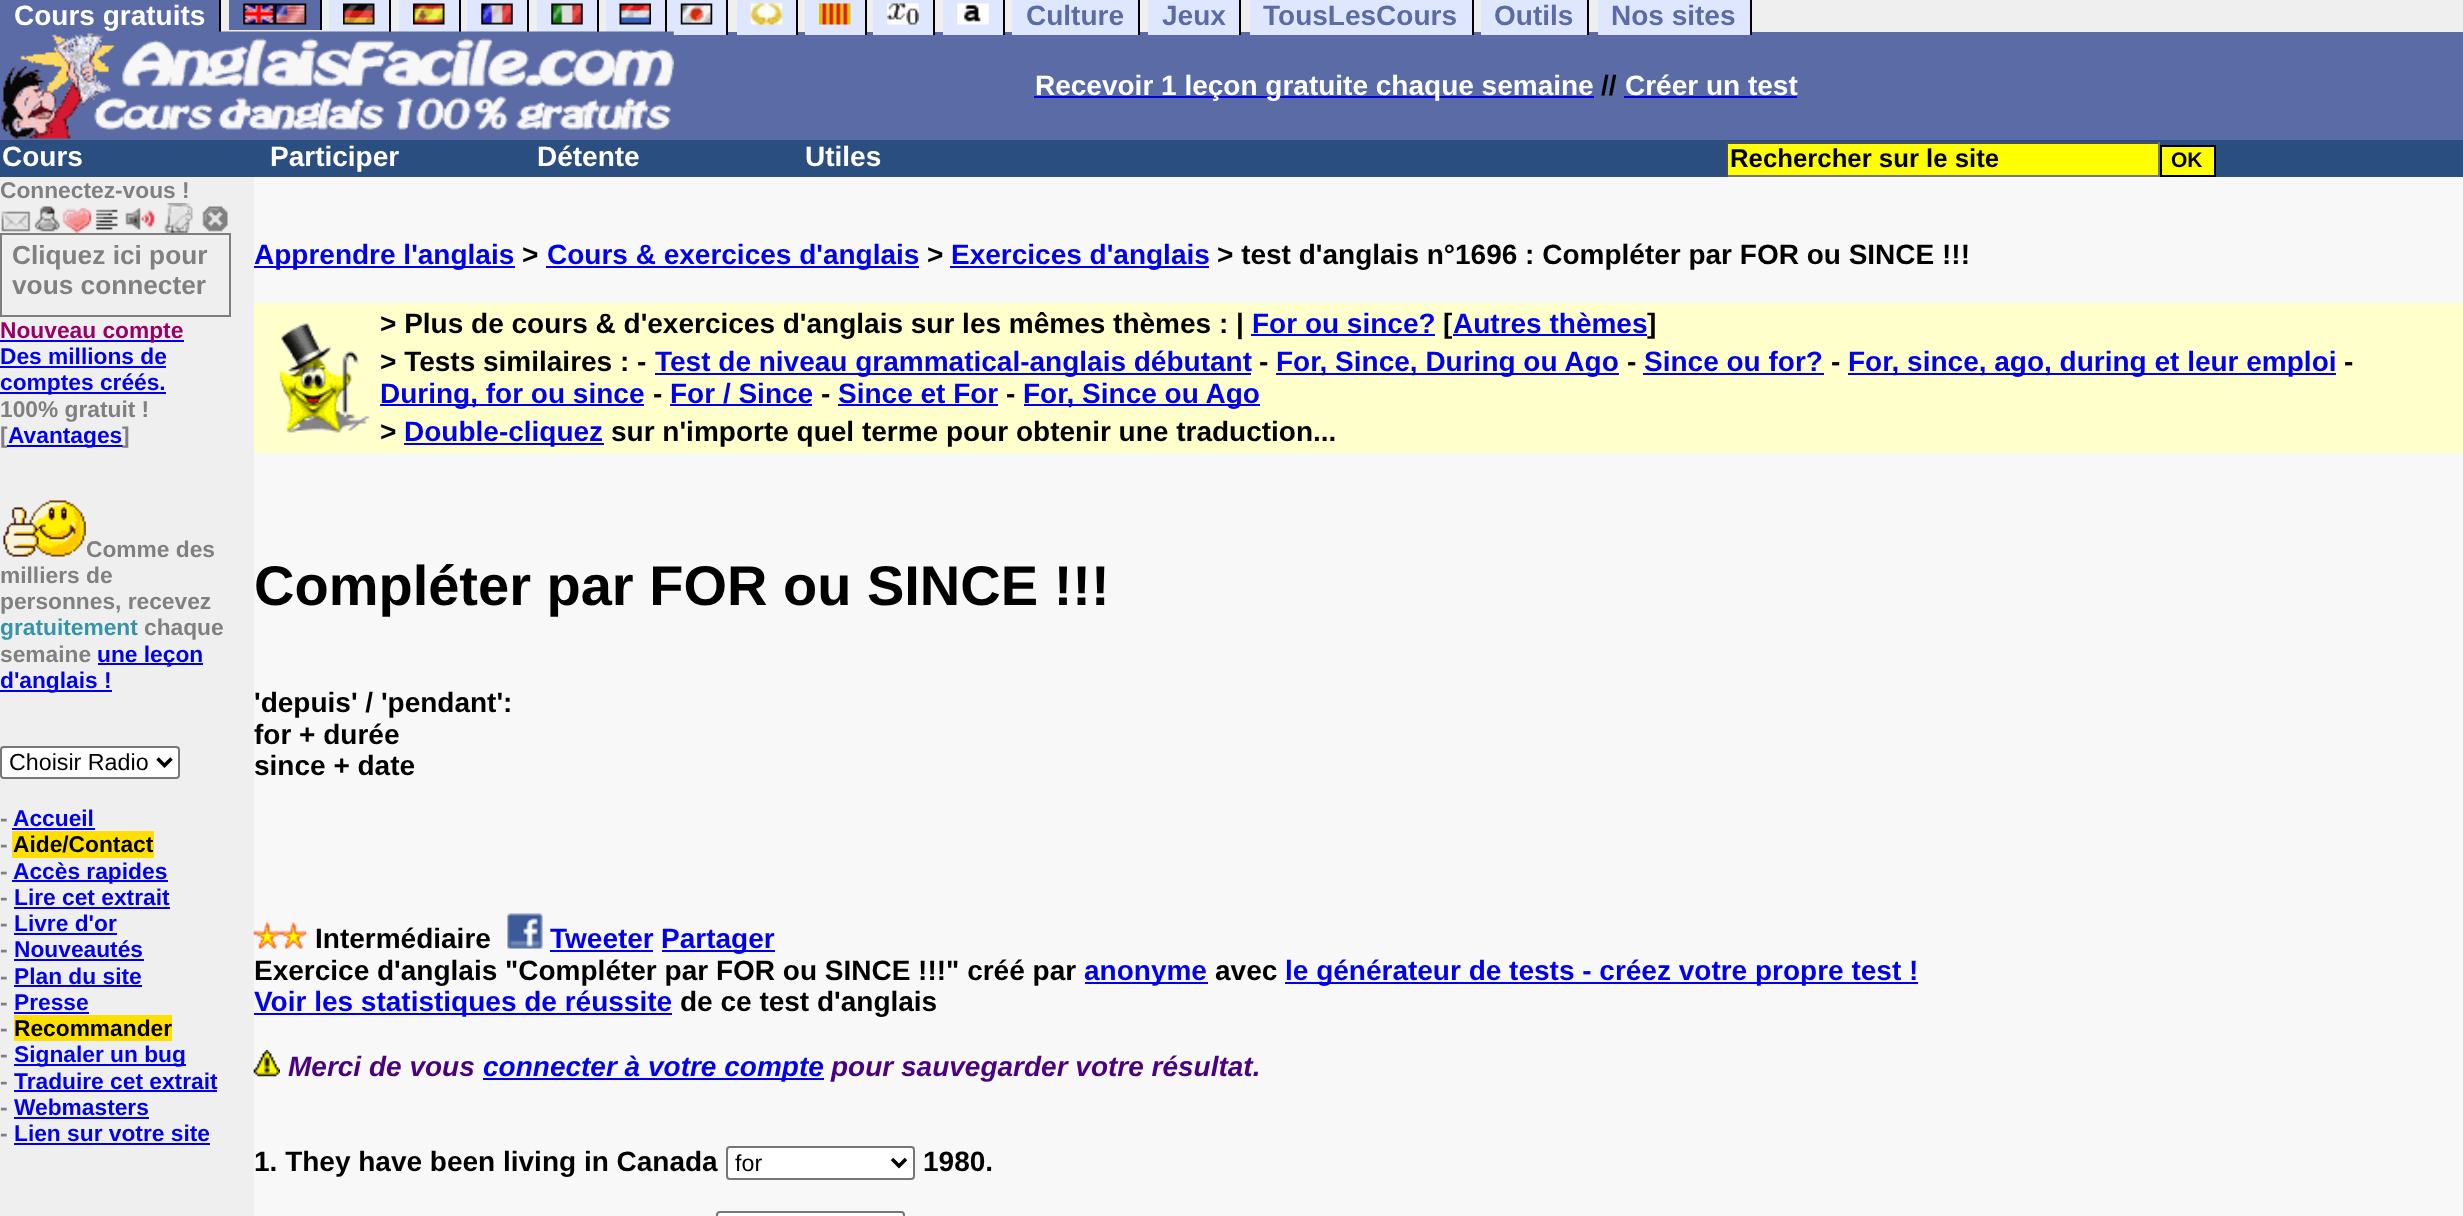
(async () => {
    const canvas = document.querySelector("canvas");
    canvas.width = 2463;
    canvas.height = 1216;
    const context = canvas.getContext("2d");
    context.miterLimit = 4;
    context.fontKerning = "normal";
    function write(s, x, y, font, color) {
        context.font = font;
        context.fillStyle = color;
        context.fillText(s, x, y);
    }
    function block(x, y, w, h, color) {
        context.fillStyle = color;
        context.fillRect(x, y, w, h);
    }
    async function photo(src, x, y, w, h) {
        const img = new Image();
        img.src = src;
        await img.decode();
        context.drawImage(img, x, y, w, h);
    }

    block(0, 0, 2463, 1216, "rgb(239, 239, 239)");
    block(229, 0, 91, 30, "rgb(90, 107, 165)");
    block(320, 0, 2, 30, "rgb(0, 0, 0)");
    block(329, 0, 60, 32, "rgb(223, 231, 255)");
    block(0, 32, 2463, 108, "rgb(90, 107, 165)");
    block(389, 0, 2, 35, "rgb(0, 0, 0)");
    block(399, 0, 60, 32, "rgb(223, 231, 255)");
    block(459, 0, 2, 35, "rgb(0, 0, 0)");
    block(467, 0, 60, 32, "rgb(223, 231, 255)");
    block(527, 0, 2, 35, "rgb(0, 0, 0)");
    block(537, 0, 60, 32, "rgb(223, 231, 255)");
    block(597, 0, 2, 35, "rgb(0, 0, 0)");
    block(606, 0, 59, 32, "rgb(223, 231, 255)");
    block(665, 0, 2, 35, "rgb(0, 0, 0)");
    block(667, 0, 59, 35, "rgb(223, 231, 255)");
    block(726, 0, 2, 35, "rgb(0, 0, 0)");
    block(737, 0, 59, 35, "rgb(223, 231, 255)");
    block(796, 0, 2, 35, "rgb(0, 0, 0)");
    block(805, 0, 60, 35, "rgb(223, 231, 255)");
    block(865, 0, 2, 35, "rgb(0, 0, 0)");
    block(873, 0, 60, 35, "rgb(223, 231, 255)");
    block(933, 0, 2, 35, "rgb(0, 0, 0)");
    block(943, 0, 60, 35, "rgb(223, 231, 255)");
    block(1003, 0, 2, 35, "rgb(0, 0, 0)");
    block(0, 0, 219, 32, "rgb(90, 107, 165)");
    write("Cours gratuits", 14, 25, "bold 28px Liberation Sans", "rgb(255, 255, 255)");
    block(219, 0, 2, 35, "rgb(0, 0, 0)");
    await photo("media/1.png", 243, 3, 32, 22);
    await photo("media/2.png", 274, 3, 33, 22);
    await photo("media/3.png", 343, 3, 32, 22);
    await photo("media/4.png", 413, 3, 32, 22);
    await photo("media/5.png", 481, 3, 32, 22);
    await photo("media/6.png", 551, 3, 32, 22);
    await photo("media/7.png", 619, 3, 32, 22);
    await photo("media/8.png", 680, 3, 33, 22);
    await photo("media/9.png", 750, 3, 33, 22);
    await photo("media/10.png", 819, 3, 32, 22);
    await photo("media/11.png", 887, 3, 32, 22);
    await photo("media/12.png", 957, 3, 32, 22);
    block(1012, 0, 126, 35, "rgb(223, 231, 255)");
    write("Culture", 1026, 25, "bold 28px Liberation Sans", "rgb(90, 107, 165)");
    block(1138, 0, 2, 35, "rgb(0, 0, 0)");
    block(1148, 0, 91, 35, "rgb(223, 231, 255)");
    write("Jeux", 1162, 25, "bold 28px Liberation Sans", "rgb(90, 107, 165)");
    block(1239, 0, 2, 35, "rgb(0, 0, 0)");
    block(1250, 0, 222, 35, "rgb(223, 231, 255)");
    write("TousLesCours", 1263, 25, "bold 28px Liberation Sans", "rgb(90, 107, 165)");
    block(1472, 0, 2, 35, "rgb(0, 0, 0)");
    block(1481, 0, 106, 35, "rgb(223, 231, 255)");
    write("Outils", 1494, 25, "bold 28px Liberation Sans", "rgb(90, 107, 165)");
    block(1587, 0, 2, 35, "rgb(0, 0, 0)");
    block(1598, 0, 152, 35, "rgb(223, 231, 255)");
    write("Nos sites", 1611, 25, "bold 28px Liberation Sans", "rgb(90, 107, 165)");
    block(1750, 0, 2, 35, "rgb(0, 0, 0)");
    await photo("media/13.png", 1, 31, 673, 108);
    block(1034, 96, 560, 2, "rgb(0, 0, 238)");
    write("Recevoir 1 leçon gratuite chaque semaine", 1035, 95, "bold 28px Liberation Sans", "rgb(255, 255, 255)");
    write("//", 1601, 95, "bold 28px Liberation Sans", "rgb(0, 0, 0)");
    write("Créer un test", 1625, 95, "bold 28px Liberation Sans", "rgb(255, 255, 255)");
    block(1624, 96, 173, 2, "rgb(0, 0, 238)");
    block(0, 140, 2463, 37, "rgb(43, 78, 128)");
    write("Cours", 2, 166, "bold 28px Liberation Sans", "rgb(255, 255, 255)");
    write("Participer", 270, 166, "bold 28px Liberation Sans", "rgb(255, 255, 255)");
    write("Détente", 537, 166, "bold 28px Liberation Sans", "rgb(255, 255, 255)");
    write("Utiles", 805, 166, "bold 28px Liberation Sans", "rgb(255, 255, 255)");
    block(1728, 144, 430, 31, "rgb(255, 255, 0)");
    block(1726, 142, 434, 2, "rgb(79, 79, 79)");
    block(2158, 142, 2, 35, "rgb(118, 118, 118)");
    block(1726, 175, 434, 2, "rgb(118, 118, 118)");
    block(1726, 142, 2, 35, "rgb(79, 79, 79)");
    write("Rechercher sur le site", 1730, 167, "bold 25.75px Liberation Sans", "rgb(0, 0, 0)");
    context.fillStyle = "rgb(255, 255, 0)";
    context.beginPath();
    context.rect(2161, 146, 54, 30);
    context.fill();
    context.strokeStyle = "rgb(0, 0, 0)";
    context.lineWidth = 2;
    context.stroke();
    write("OK", 2171, 167, "bold 21px Liberation Sans", "rgb(0, 0, 0)");
    write("Connectez-vous !", 0, 198, "bold 22.75px Liberation Sans", "rgb(128, 128, 128)");
    await photo("media/14.png", 1, 203, 227, 30);
    context.strokeStyle = "rgb(127, 125, 128)";
    context.strokeRect(1, 234, 229, 82);
    write("Cliquez ici pour", 12, 264, "bold 26.25px Liberation Sans", "rgb(128, 128, 128)");
    write("vous connecter", 12, 294, "bold 26.25px Liberation Sans", "rgb(128, 128, 128)");
    block(0, 340, 184, 2, "rgb(0, 0, 238)");
    write("Nouveau compte", 0, 338, "bold 22.75px Liberation Sans", "rgb(153, 0, 102)");
    write("Des millions de", 0, 364, "bold 22.75px Liberation Sans", "rgb(0, 0, 238)");
    block(0, 366, 166, 2, "rgb(0, 0, 238)");
    block(0, 392, 166, 2, "rgb(0, 0, 238)");
    write("comptes créés.", 0, 390, "bold 22.75px Liberation Sans", "rgb(0, 0, 238)");
    write("100% gratuit !", 0, 417, "bold 22.75px Liberation Sans", "rgb(128, 128, 128)");
    write("[", 0, 443, "bold 22.75px Liberation Sans", "rgb(128, 128, 128)");
    block(7, 445, 116, 2, "rgb(0, 0, 238)");
    write("Avantages", 8, 443, "bold 22.75px Liberation Sans", "rgb(0, 0, 238)");
    write("]", 122, 443, "bold 22.75px Liberation Sans", "rgb(128, 128, 128)");
    await photo("media/15.png", 3, 500, 83, 57);
    write("Comme des", 86, 557, "bold 22.75px Liberation Sans", "rgb(128, 128, 128)");
    write("milliers de", 0, 583, "bold 22.75px Liberation Sans", "rgb(128, 128, 128)");
    write("personnes, recevez", 0, 609, "bold 22.75px Liberation Sans", "rgb(128, 128, 128)");
    write("gratuitement", 0, 635, "bold 22.75px Liberation Sans", "rgb(53, 148, 165)");
    write("chaque", 144, 635, "bold 22.75px Liberation Sans", "rgb(128, 128, 128)");
    write("semaine", 0, 662, "bold 22.75px Liberation Sans", "rgb(128, 128, 128)");
    block(98, 663, 105, 2, "rgb(0, 0, 238)");
    write("une leçon", 97, 662, "bold 22.75px Liberation Sans", "rgb(0, 0, 238)");
    block(0, 690, 112, 2, "rgb(0, 0, 238)");
    write("d'anglais !", 0, 688, "bold 22.75px Liberation Sans", "rgb(0, 0, 238)");
    context.fillStyle = "rgb(255, 255, 255)";
    context.beginPath();
    context.roundRect(1, 747, 178, 31, 3);
    context.fill();
    context.strokeStyle = "rgb(118, 118, 118)";
    context.stroke();
    context.beginPath();
    context.moveTo(157.5, 758.5);
    context.lineTo(164.5, 765.5);
    context.lineTo(171.5, 758.5);
    context.strokeStyle = "rgb(0, 0, 0)";
    context.lineWidth = 3.5;
    context.stroke();
    write("Choisir Radio", 9, 770, "23.25px Liberation Sans", "rgb(0, 0, 0)");
    write("-", 0, 826, "bold 22.75px Liberation Sans", "rgb(128, 128, 128)");
    write("Accueil", 13, 826, "bold 22.75px Liberation Sans", "rgb(0, 0, 238)");
    block(12, 828, 83, 2, "rgb(0, 0, 238)");
    write("-", 0, 852, "bold 22.75px Liberation Sans", "rgb(128, 128, 128)");
    block(12, 831, 142, 27, "rgb(255, 222, 2)");
    write("Aide/Contact", 13, 852, "bold 22.75px Liberation Sans", "rgb(0, 0, 0)");
    write("-", 0, 879, "bold 22.75px Liberation Sans", "rgb(128, 128, 128)");
    block(12, 880, 156, 2, "rgb(0, 0, 238)");
    write("Accès rapides", 13, 879, "bold 22.75px Liberation Sans", "rgb(0, 0, 238)");
    write("-", 0, 905, "bold 22.75px Liberation Sans", "rgb(128, 128, 128)");
    write("Lire cet extrait", 14, 905, "bold 22.75px Liberation Sans", "rgb(0, 0, 238)");
    block(14, 907, 156, 2, "rgb(0, 0, 238)");
    write("-", 0, 931, "bold 22.75px Liberation Sans", "rgb(128, 128, 128)");
    write("Livre d'or", 14, 931, "bold 22.75px Liberation Sans", "rgb(0, 0, 238)");
    block(14, 933, 103, 2, "rgb(0, 0, 238)");
    write("-", 0, 957, "bold 22.75px Liberation Sans", "rgb(128, 128, 128)");
    write("Nouveautés", 14, 957, "bold 22.75px Liberation Sans", "rgb(0, 0, 238)");
    block(14, 959, 130, 2, "rgb(0, 0, 238)");
    write("-", 0, 984, "bold 22.75px Liberation Sans", "rgb(128, 128, 128)");
    write("Plan du site", 14, 984, "bold 22.75px Liberation Sans", "rgb(0, 0, 238)");
    block(14, 985, 128, 2, "rgb(0, 0, 238)");
    write("-", 0, 1010, "bold 22.75px Liberation Sans", "rgb(128, 128, 128)");
    write("Presse", 14, 1010, "bold 22.75px Liberation Sans", "rgb(0, 0, 238)");
    block(14, 1012, 75, 2, "rgb(0, 0, 238)");
    write("-", 0, 1036, "bold 22.75px Liberation Sans", "rgb(128, 128, 128)");
    block(14, 1015, 158, 26, "rgb(255, 222, 2)");
    write("Recommander", 14, 1036, "bold 22.75px Liberation Sans", "rgb(0, 0, 0)");
    write("-", 0, 1062, "bold 22.75px Liberation Sans", "rgb(128, 128, 128)");
    block(14, 1064, 172, 2, "rgb(0, 0, 238)");
    write("Signaler un bug", 14, 1062, "bold 22.75px Liberation Sans", "rgb(0, 0, 238)");
    write("-", 0, 1089, "bold 22.75px Liberation Sans", "rgb(128, 128, 128)");
    write("Traduire cet extrait", 14, 1089, "bold 22.75px Liberation Sans", "rgb(0, 0, 238)");
    block(14, 1090, 203, 2, "rgb(0, 0, 238)");
    write("-", 0, 1115, "bold 22.75px Liberation Sans", "rgb(128, 128, 128)");
    write("Webmasters", 14, 1115, "bold 22.75px Liberation Sans", "rgb(0, 0, 238)");
    block(14, 1117, 135, 2, "rgb(0, 0, 238)");
    write("-", 0, 1141, "bold 22.75px Liberation Sans", "rgb(128, 128, 128)");
    write("Lien sur votre site", 14, 1141, "bold 22.75px Liberation Sans", "rgb(0, 0, 238)");
    block(14, 1143, 196, 2, "rgb(0, 0, 238)");
    block(254, 177, 2209, 1039, "rgb(248, 248, 248)");
    block(254, 266, 261, 2, "rgb(0, 0, 238)");
    write("Apprendre l'anglais", 254, 264, "bold 28px Liberation Sans", "rgb(0, 0, 238)");
    write(">", 522, 264, "bold 28px Liberation Sans", "rgb(0, 0, 0)");
    block(546, 266, 373, 2, "rgb(0, 0, 238)");
    write("Cours & exercices d'anglais", 547, 264, "bold 28px Liberation Sans", "rgb(0, 0, 238)");
    write(">", 927, 264, "bold 28px Liberation Sans", "rgb(0, 0, 0)");
    block(950, 266, 259, 2, "rgb(0, 0, 238)");
    write("Exercices d'anglais", 951, 264, "bold 28px Liberation Sans", "rgb(0, 0, 238)");
    write("> test d'anglais n°1696 : Compléter par FOR ou SINCE !!!", 1217, 264, "bold 28px Liberation Sans", "rgb(0, 0, 0)");
    block(254, 303, 2209, 150, "rgb(255, 255, 204)");
    await photo("media/16.png", 279, 323, 91, 110);
    write("> Plus de cours & d'exercices d'anglais sur les mêmes thèmes : |", 380, 333, "bold 28px Liberation Sans", "rgb(0, 0, 0)");
    write("For ou since?", 1252, 333, "bold 28px Liberation Sans", "rgb(0, 0, 238)");
    block(1251, 334, 184, 2, "rgb(0, 0, 238)");
    write("[", 1443, 333, "bold 28px Liberation Sans", "rgb(0, 0, 0)");
    block(1453, 334, 194, 2, "rgb(0, 0, 238)");
    write("Autres thèmes", 1453, 333, "bold 28px Liberation Sans", "rgb(0, 0, 238)");
    write("]", 1647, 333, "bold 28px Liberation Sans", "rgb(0, 0, 0)");
    write("> Tests similaires : -", 380, 371, "bold 28px Liberation Sans", "rgb(0, 0, 0)");
    block(655, 373, 596, 2, "rgb(0, 0, 238)");
    write("Test de niveau grammatical-anglais débutant", 655, 371, "bold 28px Liberation Sans", "rgb(0, 0, 238)");
    write("-", 1259, 371, "bold 28px Liberation Sans", "rgb(0, 0, 0)");
    block(1276, 373, 343, 2, "rgb(0, 0, 238)");
    write("For, Since, During ou Ago", 1276, 371, "bold 28px Liberation Sans", "rgb(0, 0, 238)");
    write("-", 1627, 371, "bold 28px Liberation Sans", "rgb(0, 0, 0)");
    write("Since ou for?", 1644, 371, "bold 28px Liberation Sans", "rgb(0, 0, 238)");
    block(1643, 373, 181, 2, "rgb(0, 0, 238)");
    write("-", 1831, 371, "bold 28px Liberation Sans", "rgb(0, 0, 0)");
    block(1848, 373, 488, 2, "rgb(0, 0, 238)");
    write("For, since, ago, during et leur emploi", 1848, 371, "bold 28px Liberation Sans", "rgb(0, 0, 238)");
    write("-", 2344, 371, "bold 28px Liberation Sans", "rgb(0, 0, 0)");
    block(380, 404, 264, 2, "rgb(0, 0, 238)");
    write("During, for ou since", 380, 403, "bold 28px Liberation Sans", "rgb(0, 0, 238)");
    write("-", 653, 403, "bold 28px Liberation Sans", "rgb(0, 0, 0)");
    write("For / Since", 670, 403, "bold 28px Liberation Sans", "rgb(0, 0, 238)");
    block(670, 404, 142, 2, "rgb(0, 0, 238)");
    write("-", 821, 403, "bold 28px Liberation Sans", "rgb(0, 0, 0)");
    write("Since et For", 838, 403, "bold 28px Liberation Sans", "rgb(0, 0, 238)");
    block(838, 404, 160, 2, "rgb(0, 0, 238)");
    write("-", 1006, 403, "bold 28px Liberation Sans", "rgb(0, 0, 0)");
    block(1024, 404, 236, 2, "rgb(0, 0, 238)");
    write("For, Since ou Ago", 1023, 403, "bold 28px Liberation Sans", "rgb(0, 0, 238)");
    write(">", 380, 441, "bold 28px Liberation Sans", "rgb(0, 0, 0)");
    block(404, 443, 200, 2, "rgb(0, 0, 238)");
    write("Double-cliquez", 404, 441, "bold 28px Liberation Sans", "rgb(0, 0, 238)");
    write("sur n'importe quel terme pour obtenir une traduction...", 611, 441, "bold 28px Liberation Sans", "rgb(0, 0, 0)");
    write("Compléter par FOR ou SINCE !!!", 254, 605, "bold 56px Liberation Sans", "rgb(0, 0, 0)");
    write("'depuis' / 'pendant':", 254, 712, "bold 28px Liberation Sans", "rgb(0, 0, 0)");
    write("for + durée", 254, 744, "bold 28px Liberation Sans", "rgb(0, 0, 0)");
    write("since + date", 254, 775, "bold 28px Liberation Sans", "rgb(0, 0, 0)");
    await photo("media/17.png", 253, 922, 27, 27);
    await photo("media/18.png", 280, 922, 27, 27);
    write("Intermédiaire", 315, 948, "bold 28px Liberation Sans", "rgb(0, 0, 0)");
    await photo("media/19.png", 507, 913, 36, 36);
    write("Tweeter", 550, 948, "bold 28px Liberation Sans", "rgb(0, 0, 238)");
    block(550, 950, 103, 2, "rgb(0, 0, 238)");
    block(662, 950, 113, 2, "rgb(0, 0, 238)");
    write("Partager", 661, 948, "bold 28px Liberation Sans", "rgb(0, 0, 238)");
    write("Exercice d'anglais \"Compléter par FOR ou SINCE !!!\" créé par", 254, 980, "bold 28px Liberation Sans", "rgb(0, 0, 0)");
    block(1085, 982, 123, 2, "rgb(0, 0, 238)");
    write("anonyme", 1084, 980, "bold 28px Liberation Sans", "rgb(0, 0, 238)");
    write("avec", 1215, 980, "bold 28px Liberation Sans", "rgb(0, 0, 0)");
    block(1285, 982, 633, 2, "rgb(0, 0, 238)");
    write("le générateur de tests - créez votre propre test !", 1285, 980, "bold 28px Liberation Sans", "rgb(0, 0, 238)");
    block(254, 1013, 418, 2, "rgb(0, 0, 238)");
    write("Voir les statistiques de réussite", 254, 1011, "bold 28px Liberation Sans", "rgb(0, 0, 238)");
    write("de ce test d'anglais", 680, 1011, "bold 28px Liberation Sans", "rgb(0, 0, 0)");
    await photo("media/20.png", 253, 1050, 27, 27);
    write("Merci de vous", 288, 1076, "italic bold 28px Liberation Sans", "rgb(75, 0, 130)");
    block(483, 1078, 341, 2, "rgb(0, 0, 238)");
    write("connecter à votre compte", 483, 1076, "italic bold 28px Liberation Sans", "rgb(0, 0, 238)");
    write("pour sauvegarder votre résultat.", 831, 1076, "italic bold 28px Liberation Sans", "rgb(75, 0, 130)");
    write("1. They have been living in Canada", 254, 1171, "bold 28px Liberation Sans", "rgb(0, 0, 0)");
    context.fillStyle = "rgb(255, 255, 255)";
    context.beginPath();
    context.roundRect(727, 1147, 187, 32, 3);
    context.fill();
    context.strokeStyle = "rgb(118, 118, 118)";
    context.lineWidth = 2;
    context.stroke();
    context.beginPath();
    context.moveTo(892, 1159);
    context.lineTo(899, 1166);
    context.lineTo(906, 1159);
    context.strokeStyle = "rgb(0, 0, 0)";
    context.lineWidth = 3.5;
    context.stroke();
    write("for", 735, 1171, "23.25px Liberation Sans", "rgb(0, 0, 0)");
    write("1980.", 923, 1171, "bold 28px Liberation Sans", "rgb(0, 0, 0)");
    context.fillStyle = "rgb(255, 255, 255)";
    context.beginPath();
    context.roundRect(717, 1212, 187, 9, 3);
    context.fill();
    context.strokeStyle = "rgb(118, 118, 118)";
    context.lineWidth = 2;
    context.stroke();
})();
